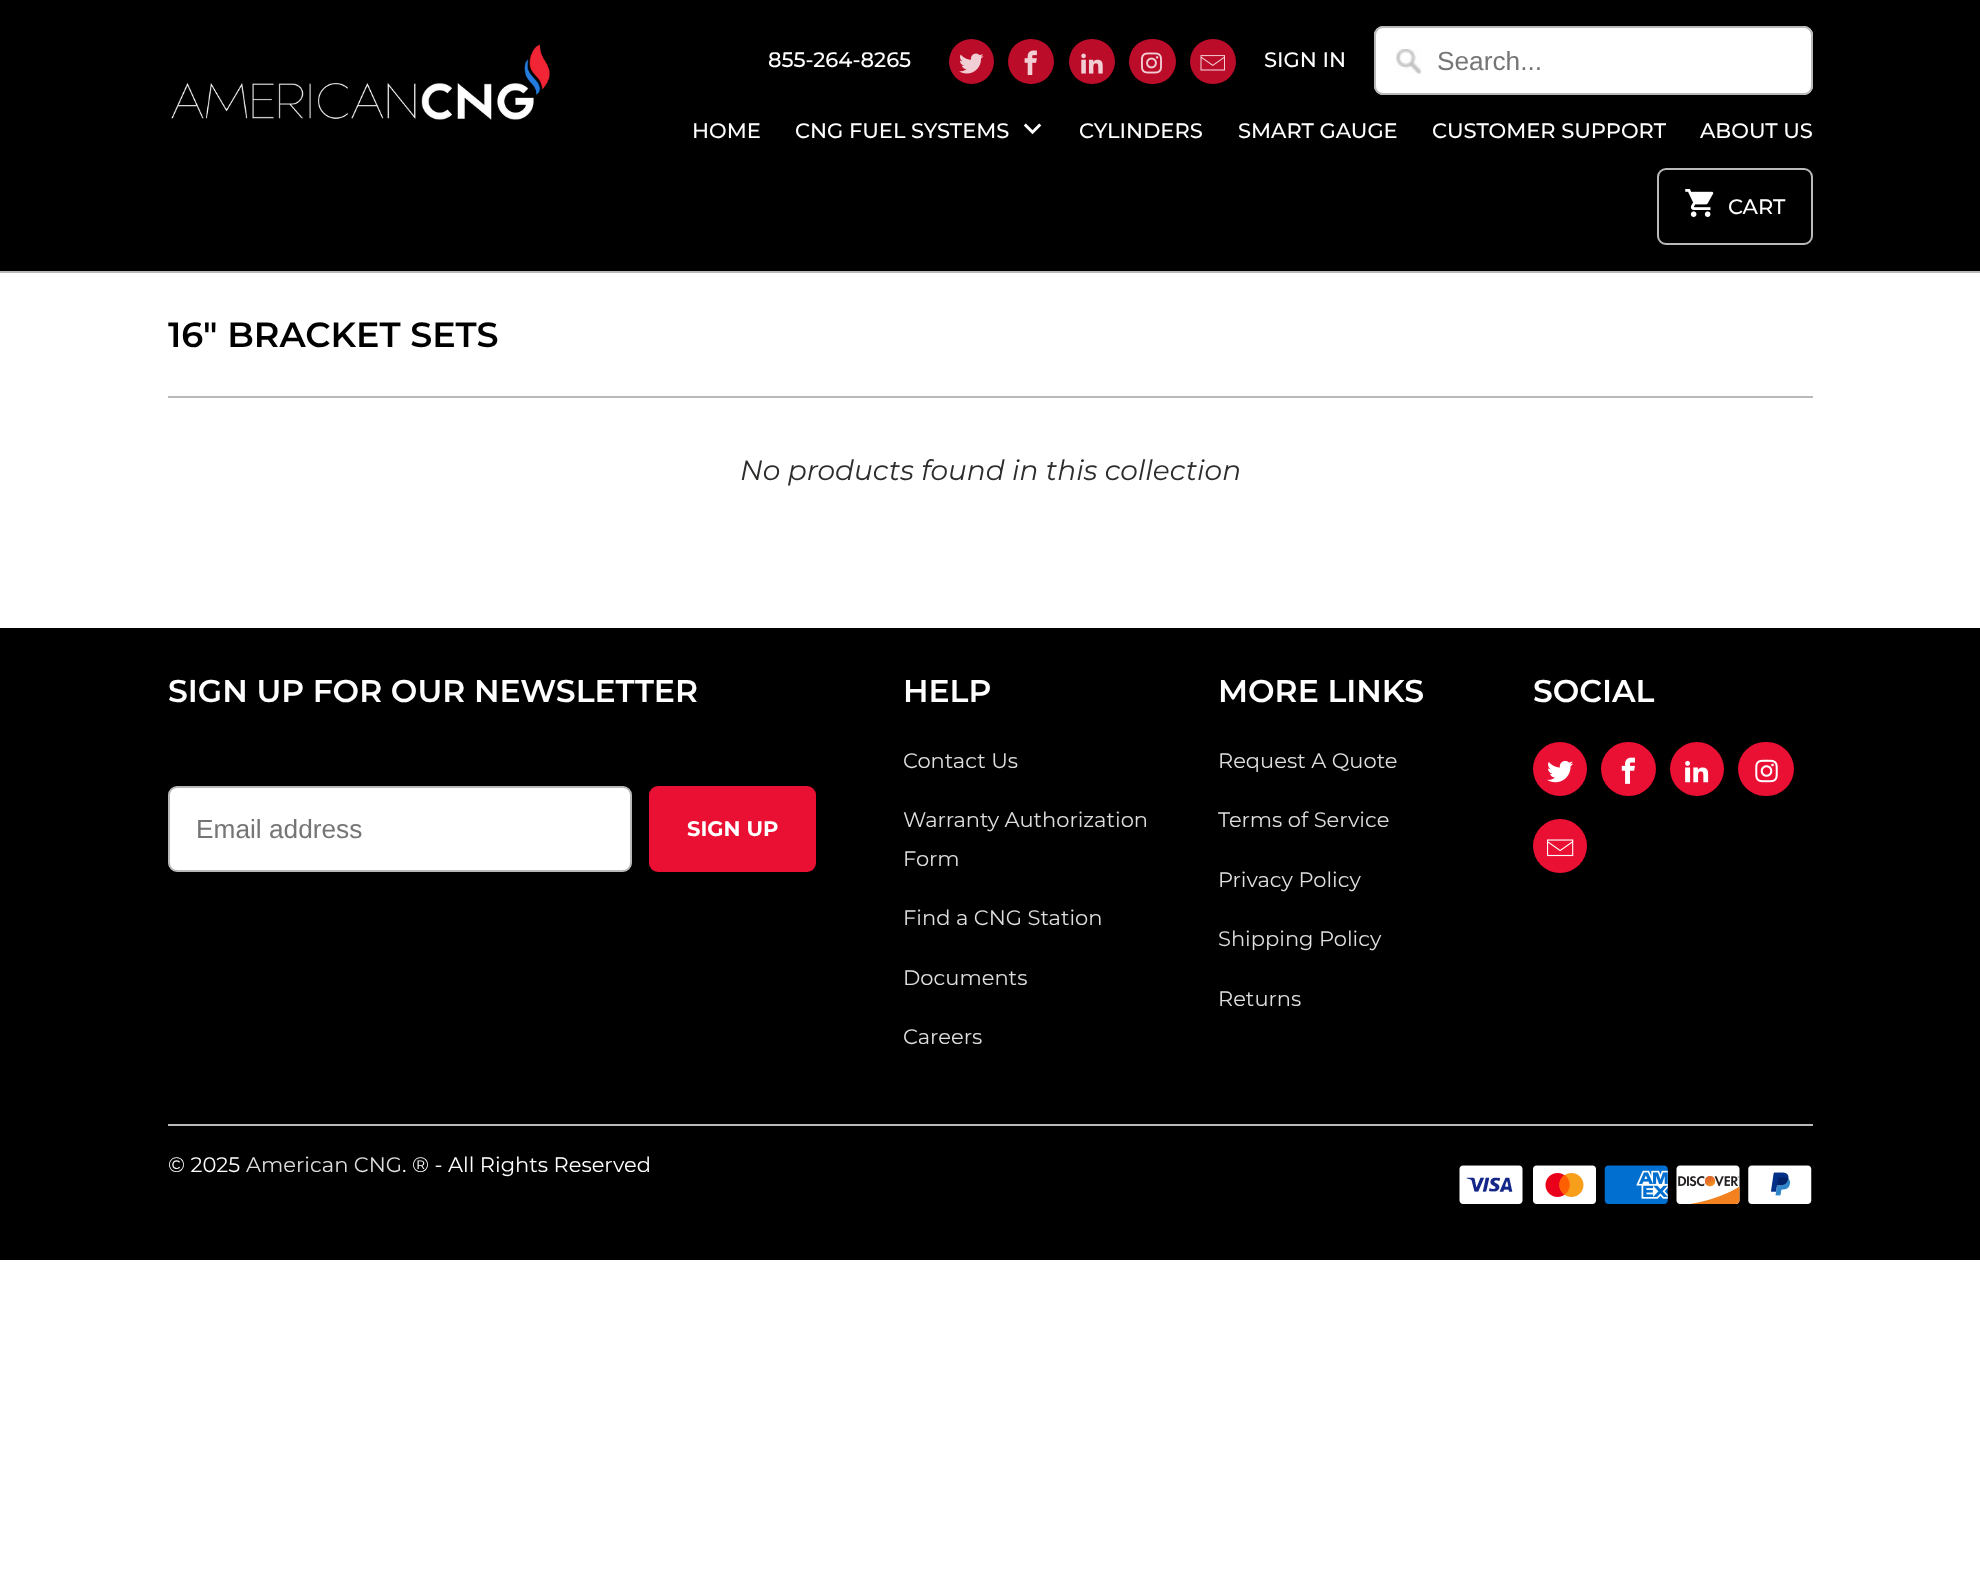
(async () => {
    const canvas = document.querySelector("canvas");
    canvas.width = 1980;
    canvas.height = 1582;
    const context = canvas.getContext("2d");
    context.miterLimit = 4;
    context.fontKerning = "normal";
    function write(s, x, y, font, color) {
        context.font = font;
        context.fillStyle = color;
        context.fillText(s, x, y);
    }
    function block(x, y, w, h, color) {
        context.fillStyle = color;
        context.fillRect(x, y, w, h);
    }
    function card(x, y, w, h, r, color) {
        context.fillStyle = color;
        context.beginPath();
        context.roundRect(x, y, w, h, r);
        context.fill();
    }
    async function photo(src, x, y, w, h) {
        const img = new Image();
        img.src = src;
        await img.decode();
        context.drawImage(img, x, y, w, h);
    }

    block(0, 0, 1980, 1582, "rgb(255, 255, 255)");
    block(0, 0, 1980, 271, "rgb(0, 0, 0)");
    block(0, 271, 1980, 2, "rgb(185, 185, 185)");
    await photo("media/1.png", 171, 44, 379, 76);
    write("855-264-8265", 768, 67, "500 21px Montserrat", "rgb(255, 255, 255)");
    context.fillStyle = "rgb(187, 13, 42)";
    context.beginPath();
    context.arc(971.5, 61.5, 22.5, 0, Math.PI * 2);
    context.fill();
    await photo("media/2.png", 959, 53, 25, 21);
    card(1008, 39, 46, 45, 22.5, "rgb(187, 13, 42)");
    await photo("media/3.png", 1024, 50, 13, 25);
    card(1069, 39, 46, 45, 22.5, "rgb(187, 13, 42)");
    await photo("media/4.png", 1081, 53, 22, 21);
    card(1129, 39, 47, 45, 22.5, "rgb(187, 13, 42)");
    await photo("media/5.png", 1141, 52, 21, 22);
    card(1190, 39, 46, 45, 22.5, "rgb(187, 13, 42)");
    await photo("media/6.png", 1200, 55, 25, 16);
    write("SIGN IN", 1264, 67, "500 21px Montserrat", "rgb(255, 255, 255)");
    card(1374, 26, 439, 69, 9, "rgb(255, 255, 255)");
    await photo("media/7.png", 1396, 49, 25, 25);
    context.beginPath();
    context.roundRect(1375, 27, 437, 67, 8);
    context.strokeStyle = "rgb(185, 185, 185)";
    context.lineWidth = 2;
    context.stroke();
    write("Search...", 1437, 70, "26.25px Liberation Sans", "rgb(117, 117, 117)");
    write("HOME", 692, 138, "500 21px Montserrat", "rgb(255, 255, 255)");
    write("CNG FUEL SYSTEMS", 795, 138, "500 21px Montserrat", "rgb(255, 255, 255)");
    await photo("media/8.png", 1023, 123, 19, 12);
    write("CYLINDERS", 1079, 138, "500 21px Montserrat", "rgb(255, 255, 255)");
    write("SMART GAUGE", 1238, 138, "500 21px Montserrat", "rgb(255, 255, 255)");
    write("CUSTOMER SUPPORT", 1432, 138, "500 21px Montserrat", "rgb(255, 255, 255)");
    write("ABOUT US", 1700, 138, "500 21px Montserrat", "rgb(255, 255, 255)");
    context.beginPath();
    context.roundRect(1658, 169, 154, 75, 8);
    context.stroke();
    await photo("media/9.png", 1685, 189, 29, 28);
    write("CART", 1728, 214, "500 21px Montserrat", "rgb(255, 255, 255)");
    block(168, 396, 1645, 2, "rgb(185, 185, 185)");
    write("16\" BRACKET SETS", 168, 347, "600 35px Montserrat", "rgb(0, 0, 0)");
    write("No products found in this collection", 740, 480, "italic 28px Montserrat", "rgb(46, 45, 44)");
    block(0, 628, 1980, 632, "rgb(0, 0, 0)");
    write("SIGN UP FOR OUR NEWSLETTER", 168, 702, "600 31.5px Montserrat", "rgb(255, 255, 255)");
    context.beginPath();
    context.roundRect(169, 787, 462, 84, 8);
    context.fill();
    context.stroke();
    write("Email address", 196, 838, "26.25px Liberation Sans", "rgb(117, 117, 117)");
    card(649, 786, 167, 86, 9, "rgb(234, 16, 52)");
    write("SIGN UP", 687, 836, "bold 21px Montserrat", "rgb(255, 255, 255)");
    write("HELP", 903, 702, "600 31.5px Montserrat", "rgb(255, 255, 255)");
    write("Contact Us", 903, 768, "21px Montserrat", "rgb(222, 222, 222)");
    write("Warranty Authorization", 903, 827, "21px Montserrat", "rgb(222, 222, 222)");
    write("Form", 903, 866, "21px Montserrat", "rgb(222, 222, 222)");
    write("Find a CNG Station", 903, 925, "21px Montserrat", "rgb(222, 222, 222)");
    write("Documents", 903, 985, "21px Montserrat", "rgb(222, 222, 222)");
    write("Careers", 903, 1044, "21px Montserrat", "rgb(222, 222, 222)");
    write("MORE LINKS", 1218, 702, "600 31.5px Montserrat", "rgb(255, 255, 255)");
    write("Request A Quote", 1218, 768, "21px Montserrat", "rgb(222, 222, 222)");
    write("Terms of Service", 1218, 827, "21px Montserrat", "rgb(222, 222, 222)");
    write("Privacy Policy", 1218, 887, "21px Montserrat", "rgb(222, 222, 222)");
    write("Shipping Policy", 1218, 946, "21px Montserrat", "rgb(222, 222, 222)");
    write("Returns", 1218, 1006, "21px Montserrat", "rgb(222, 222, 222)");
    write("SOCIAL", 1533, 702, "600 31.5px Montserrat", "rgb(255, 255, 255)");
    context.fillStyle = "rgb(234, 16, 52)";
    context.beginPath();
    context.arc(1560, 769, 27, 0, Math.PI * 2);
    context.fill();
    await photo("media/10.png", 1547, 760, 27, 23);
    card(1601, 742, 55, 54, 27, "rgb(234, 16, 52)");
    await photo("media/11.png", 1621, 757, 14, 27);
    context.beginPath();
    context.arc(1697, 769, 27, 0, Math.PI * 2);
    context.fill();
    await photo("media/12.png", 1685, 760, 24, 23);
    card(1738, 742, 56, 54, 27, "rgb(234, 16, 52)");
    await photo("media/13.png", 1755, 759, 23, 24);
    context.beginPath();
    context.arc(1560, 846, 27, 0, Math.PI * 2);
    context.fill();
    await photo("media/14.png", 1547, 839, 27, 18);
    block(168, 1124, 1645, 2, "rgb(185, 185, 185)");
    write("© 2025", 168, 1172, "21px Montserrat", "rgb(255, 255, 255)");
    write("American CNG", 246, 1172, "21px Montserrat", "rgb(222, 222, 222)");
    write(". ® - All Rights Reserved", 402, 1172, "21px Montserrat", "rgb(255, 255, 255)");
    await photo("media/15.png", 1459, 1165, 64, 39);
    await photo("media/16.png", 1533, 1165, 63, 39);
    await photo("media/17.png", 1604, 1165, 64, 39);
    await photo("media/18.png", 1676, 1165, 64, 39);
    await photo("media/19.png", 1748, 1165, 64, 39);
})();
